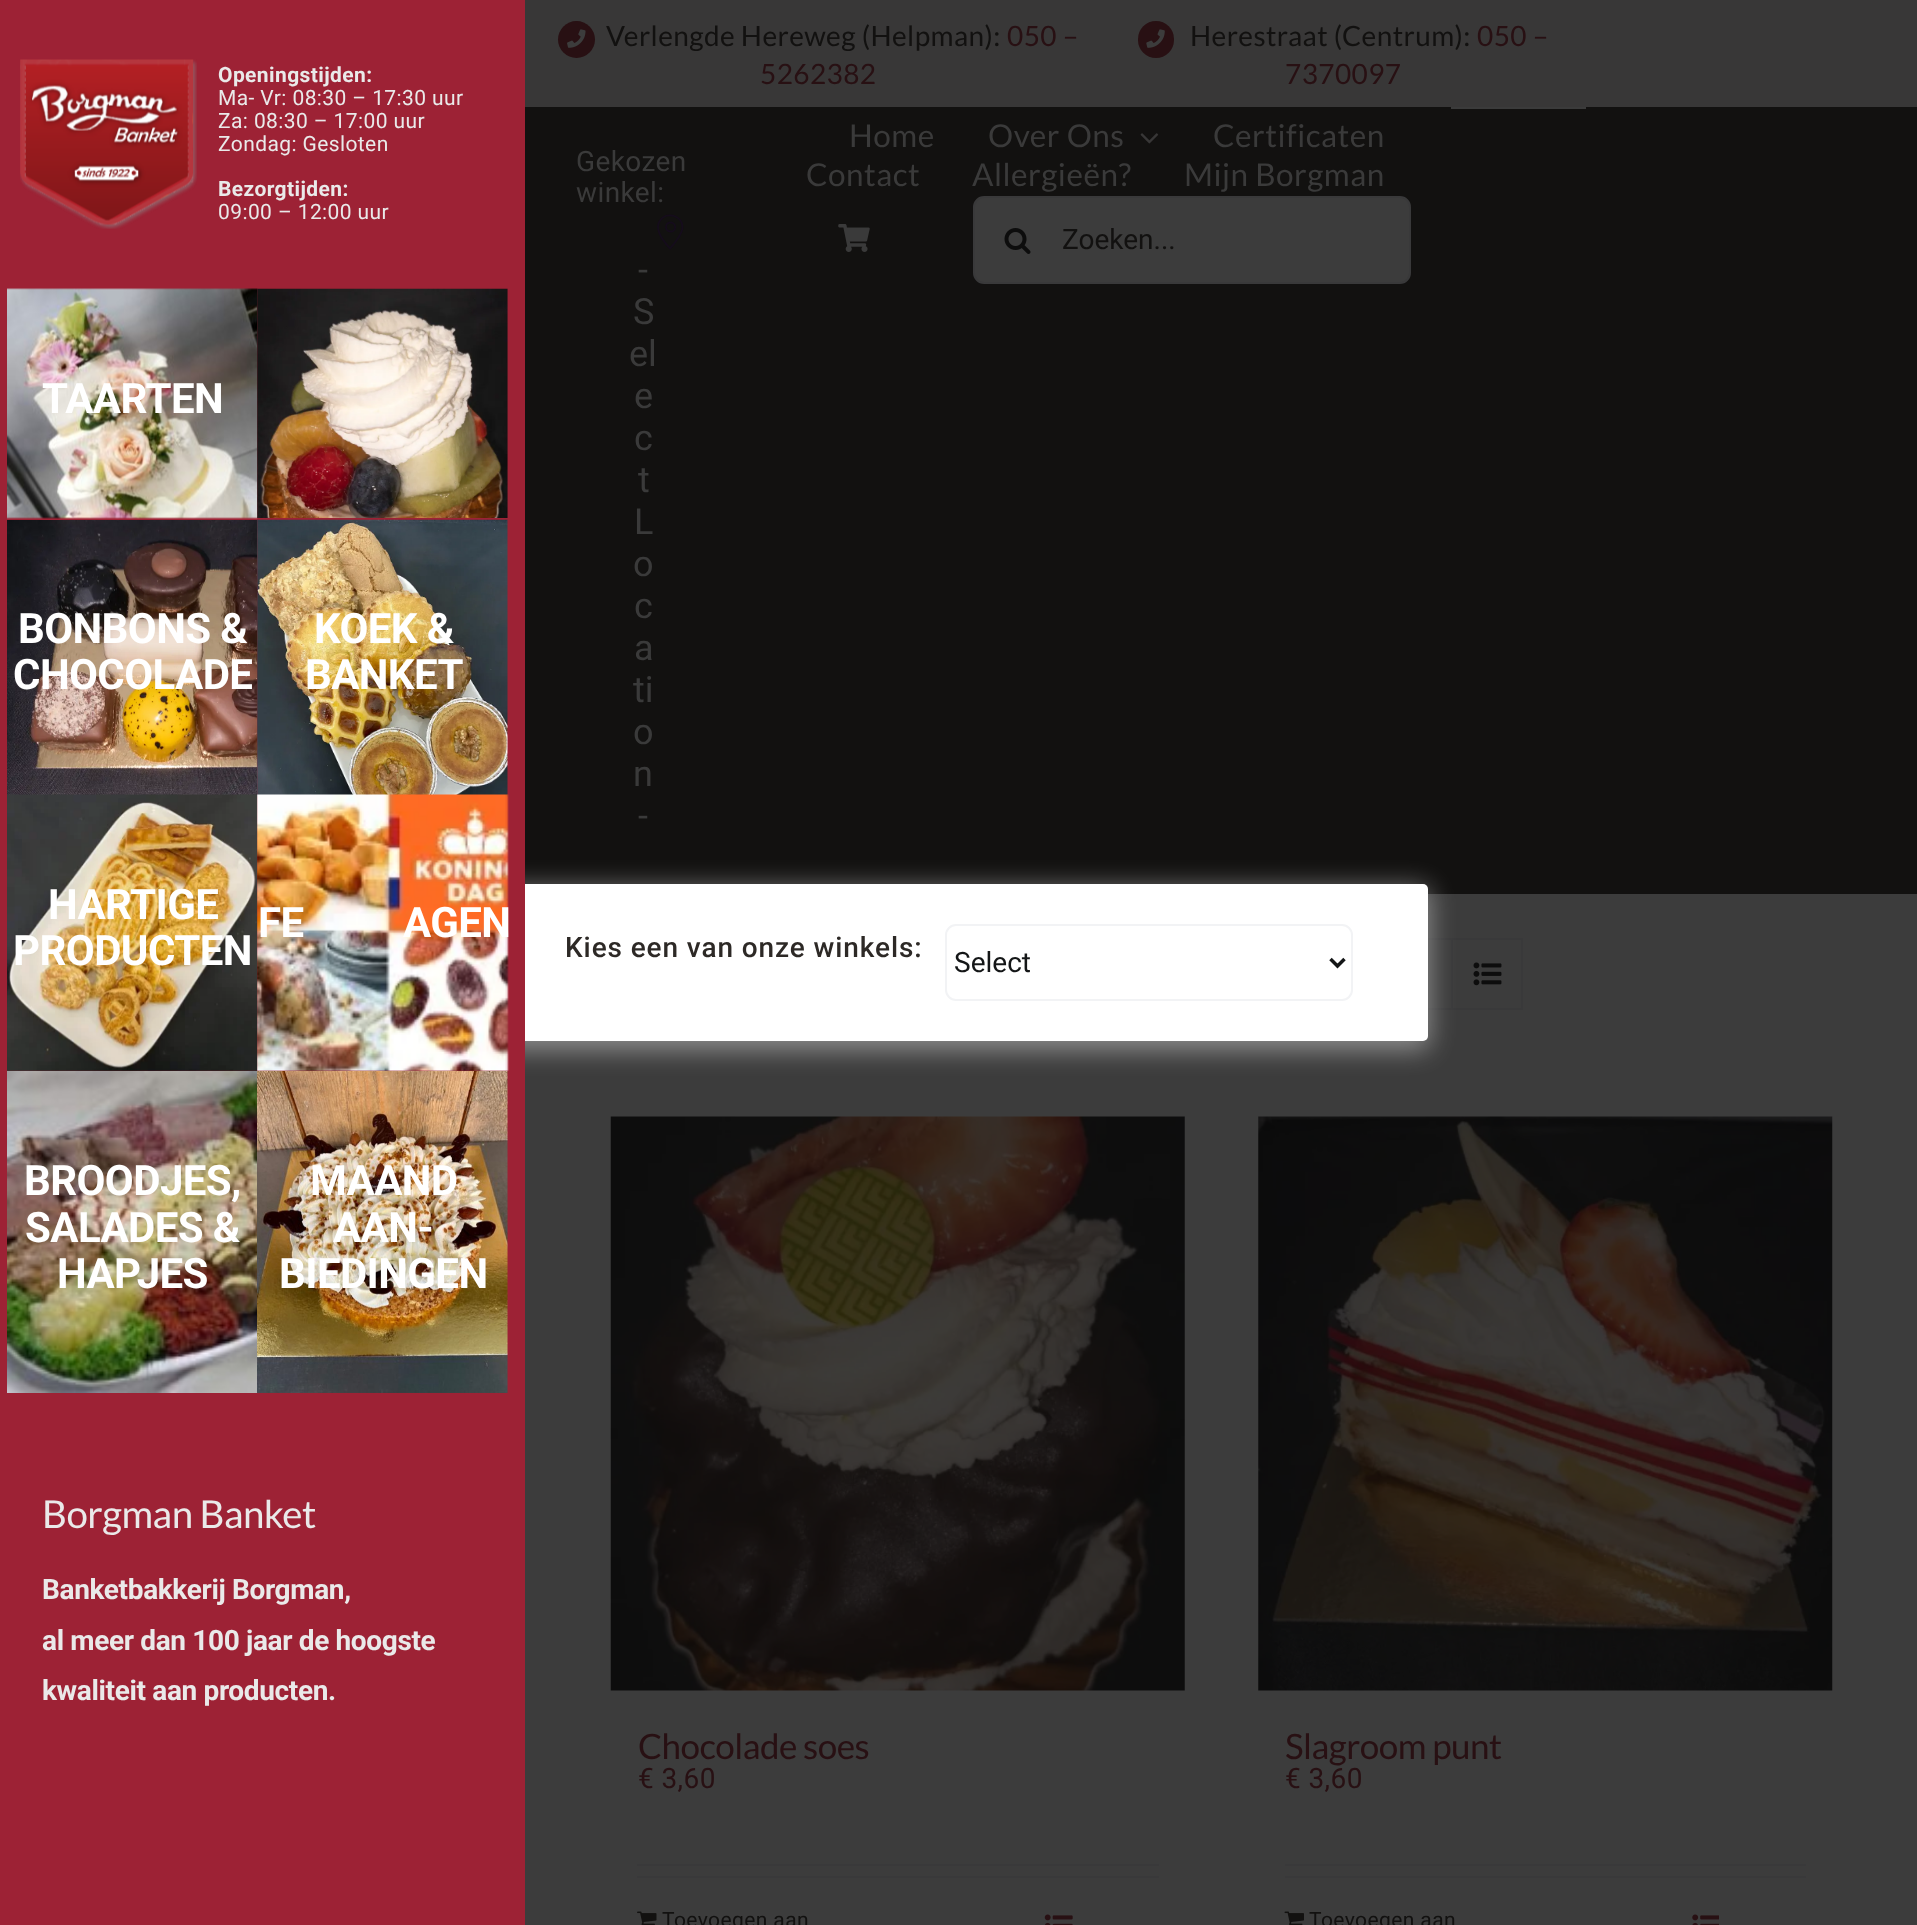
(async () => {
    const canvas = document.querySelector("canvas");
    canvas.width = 1917;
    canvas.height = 1925;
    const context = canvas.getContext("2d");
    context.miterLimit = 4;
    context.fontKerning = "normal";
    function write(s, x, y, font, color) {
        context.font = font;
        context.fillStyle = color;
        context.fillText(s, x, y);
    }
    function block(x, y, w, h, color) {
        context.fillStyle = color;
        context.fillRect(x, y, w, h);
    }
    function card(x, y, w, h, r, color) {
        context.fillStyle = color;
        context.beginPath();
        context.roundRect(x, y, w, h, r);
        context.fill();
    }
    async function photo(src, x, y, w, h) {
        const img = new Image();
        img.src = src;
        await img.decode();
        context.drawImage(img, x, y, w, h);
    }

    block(0, 0, 1917, 1925, "rgb(60, 60, 60)");
    block(525, 107, 1392, 787, "rgb(18, 17, 16)");
    context.strokeStyle = "rgb(57, 57, 58)";
    context.lineWidth = 2;
    context.strokeRect(1384, 939, 138, 70);
    block(1451, 940, 2, 68, "rgb(57, 57, 58)");
    context.fillStyle = "rgba(255, 255, 255, 0.42)";
    context.filter = "blur(13px)";
    context.beginPath();
    context.roundRect(485, 886, 945, 164, 9);
    context.fill();
    context.filter = "none";
    card(490, 884, 938, 157, 5, "rgb(255, 255, 255)");
    block(0, 0, 525, 1925, "rgb(157, 34, 53)");
    await photo("media/1.png", 20, 59, 177, 170);
    context.letterSpacing = "0.4px";
    write("Openingstijden:", 218, 82, "bold 21px Roboto", "rgb(234, 233, 233)");
    write("Ma- Vr: 08:30 – 17:30 uur", 218, 105, "21px Roboto", "rgb(234, 233, 233)");
    write("Za: 08:30 – 17:00 uur", 218, 128, "21px Roboto", "rgb(234, 233, 233)");
    write("Zondag: Gesloten", 218, 151, "21px Roboto", "rgb(234, 233, 233)");
    write("Bezorgtijden:", 218, 196, "bold 21px Roboto", "rgb(234, 233, 233)");
    write("09:00 – 12:00 uur", 218, 219, "21px Roboto", "rgb(234, 233, 233)");
    await photo("media/2.png", 7, 288, 251, 231);
    context.letterSpacing = "-0.6px";
    write("TAARTEN", 42, 413, "bold 42px Roboto", "rgb(255, 255, 255)");
    await photo("media/3.png", 257, 288, 251, 230);
    await photo("media/4.png", 7, 520, 251, 276);
    write("BONBONS &", 18, 643, "bold 42px Roboto", "rgb(255, 255, 255)");
    write("CHOCOLADE", 13, 689, "bold 42px Roboto", "rgb(255, 255, 255)");
    await photo("media/5.png", 257, 519, 251, 278);
    write("KOEK &", 314, 643, "bold 42px Roboto", "rgb(255, 255, 255)");
    write("BANKET", 305, 689, "bold 42px Roboto", "rgb(255, 255, 255)");
    await photo("media/6.png", 7, 794, 251, 277);
    write("HARTIGE", 48, 919, "bold 42px Roboto", "rgb(255, 255, 255)");
    write("PRODUCTEN", 13, 965, "bold 42px Roboto", "rgb(255, 255, 255)");
    await photo("media/7.png", 257, 794, 252, 277);
    write("FE", 258, 937, "bold 42px Roboto", "rgb(255, 255, 255)");
    write("AGEN", 403, 937, "bold 42px Roboto", "rgb(255, 255, 255)");
    await photo("media/8.png", 7, 1071, 251, 322);
    write("BROODJES,", 24, 1195, "bold 42px Roboto", "rgb(255, 255, 255)");
    write("SALADES &", 25, 1242, "bold 42px Roboto", "rgb(255, 255, 255)");
    write("HAPJES", 57, 1288, "bold 42px Roboto", "rgb(255, 255, 255)");
    await photo("media/9.png", 257, 1071, 251, 322);
    write("MAAND", 310, 1195, "bold 42px Roboto", "rgb(255, 255, 255)");
    write("AAN-", 333, 1242, "bold 42px Roboto", "rgb(255, 255, 255)");
    write("BIEDINGEN", 279, 1288, "bold 42px Roboto", "rgb(255, 255, 255)");
    context.letterSpacing = "-0.5px";
    write("Borgman Banket", 42, 1528, "38.5px Lato", "rgb(234, 233, 233)");
    context.letterSpacing = "-0.35px";
    write("Banketbakkerij Borgman,", 42, 1599, "bold 28px Roboto", "rgb(234, 233, 233)");
    write("al meer dan 100 jaar de hoogste", 42, 1650, "bold 28px Roboto", "rgb(234, 233, 233)");
    write("kwaliteit aan producten.", 42, 1700, "bold 28px Roboto", "rgb(234, 233, 233)");
    block(525, 0, 1392, 107, "rgb(56, 55, 55)");
    context.fillStyle = "rgb(40, 16, 19)";
    context.beginPath();
    context.arc(576.5, 39.5, 18.5, 0, Math.PI * 2);
    context.fill();
    await photo("media/10.png", 567, 29, 19, 19);
    context.letterSpacing = "0.4px";
    write("Verlengde Hereweg (Helpman):", 606, 46, "28px Lato", "rgb(18, 17, 16)");
    write("050 –", 1007, 46, "28px Lato", "rgb(40, 16, 19)");
    write("5262382", 760, 84, "28px Lato", "rgb(40, 16, 19)");
    card(1138, 21, 36, 37, 18, "rgb(40, 16, 19)");
    await photo("media/11.png", 1146, 29, 19, 19);
    write("Herestraat (Centrum):", 1190, 46, "28px Lato", "rgb(18, 17, 16)");
    write("050 –", 1477, 46, "28px Lato", "rgb(40, 16, 19)");
    write("7370097", 1285, 84, "28px Lato", "rgb(40, 16, 19)");
    block(1451, 107, 135, 2, "rgb(59, 59, 59)");
    write("Gekozen", 576, 171, "28px Roboto", "rgb(58, 58, 58)");
    write("winkel:", 576, 202, "28px Roboto", "rgb(58, 58, 58)");
    context.beginPath();
    context.moveTo(682.5, 227);
    context.bezierCurveTo(682.5, 235, 670, 248.5, 670, 248.5);
    context.bezierCurveTo(664, 242, 653.5, 229.5, 660, 220.5);
    context.bezierCurveTo(666.5, 211, 682.5, 215.5, 682.5, 227);
    context.closePath();
    context.moveTo(670.5, 222.5);
    context.bezierCurveTo(664.5, 222.5, 664.5, 231.5, 670.5, 231.5);
    context.bezierCurveTo(676.5, 232, 677, 222.5, 670.5, 222.5);
    context.closePath();
    context.strokeStyle = "rgb(21, 12, 27)";
    context.lineWidth = 1.8;
    context.lineCap = "round";
    context.lineJoin = "round";
    context.stroke();
    context.letterSpacing = "0px";
    write("-", 638, 282, "36px Roboto", "rgb(58, 58, 58)");
    write("S", 633, 324, "36px Roboto", "rgb(58, 58, 58)");
    write("el", 629, 366, "36px Roboto", "rgb(58, 58, 58)");
    write("e", 634, 408, "36px Roboto", "rgb(58, 58, 58)");
    write("c", 634, 450, "36px Roboto", "rgb(58, 58, 58)");
    write("t", 638, 492, "36px Roboto", "rgb(58, 58, 58)");
    write("L", 634, 534, "36px Roboto", "rgb(58, 58, 58)");
    write("o", 633, 576, "36px Roboto", "rgb(58, 58, 58)");
    write("c", 634, 618, "36px Roboto", "rgb(58, 58, 58)");
    write("a", 634, 660, "36px Roboto", "rgb(58, 58, 58)");
    write("ti", 633, 702, "36px Roboto", "rgb(58, 58, 58)");
    write("o", 633, 744, "36px Roboto", "rgb(58, 58, 58)");
    write("n", 633, 786, "36px Roboto", "rgb(58, 58, 58)");
    write("-", 638, 828, "36px Roboto", "rgb(58, 58, 58)");
    context.letterSpacing = "0.5px";
    write("Home", 849, 147, "31.5px Lato", "rgb(58, 58, 58)");
    write("Over Ons", 988, 147, "31.5px Lato", "rgb(58, 58, 58)");
    await photo("media/12.png", 1140, 133, 19, 11);
    write("Certificaten", 1213, 147, "31.5px Lato", "rgb(58, 58, 58)");
    write("Contact", 806, 186, "31.5px Lato", "rgb(58, 58, 58)");
    write("Allergieën?", 972, 186, "31.5px Lato", "rgb(58, 58, 58)");
    write("Mijn Borgman", 1184, 186, "31.5px Lato", "rgb(58, 58, 58)");
    await photo("media/13.png", 838, 224, 32, 28);
    context.fillStyle = "rgb(60, 60, 60)";
    context.beginPath();
    context.roundRect(974, 197, 436, 86, 10);
    context.fill();
    context.strokeStyle = "rgb(57, 57, 58)";
    context.lineWidth = 2;
    context.lineJoin = "miter";
    context.stroke();
    await photo("media/14.png", 1004, 228, 27, 26);
    context.letterSpacing = "0px";
    write("Zoeken...", 1062, 249, "28px Roboto", "rgb(18, 17, 16)");
    await photo("media/15.png", 1473, 962, 29, 24);
    await photo("media/16.png", 610, 1116, 575, 575);
    context.letterSpacing = "-0.5px";
    write("Chocolade soes", 638, 1759, "35px Lato", "rgb(40, 16, 19)");
    context.letterSpacing = "0.4px";
    write("€ 3,60", 638, 1788, "28px Roboto", "rgb(40, 16, 19)");
    block(637, 1864, 522, 2, "rgb(57, 57, 58)");
    block(637, 1876, 522, 2, "rgb(57, 57, 58)");
    await photo("media/17.png", 637, 1911, 20, 14);
    write("Toevoegen aan", 662, 1927, "21px Roboto", "rgb(18, 17, 16)");
    await photo("media/18.png", 1044, 1914, 29, 11);
    await photo("media/19.png", 1258, 1116, 575, 575);
    context.letterSpacing = "-0.5px";
    write("Slagroom punt", 1285, 1759, "35px Lato", "rgb(40, 16, 19)");
    context.letterSpacing = "0.4px";
    write("€ 3,60", 1285, 1788, "28px Roboto", "rgb(40, 16, 19)");
    block(1285, 1864, 521, 2, "rgb(57, 57, 58)");
    block(1285, 1876, 521, 2, "rgb(57, 57, 58)");
    await photo("media/20.png", 1284, 1911, 20, 14);
    write("Toevoegen aan", 1309, 1927, "21px Roboto", "rgb(18, 17, 16)");
    await photo("media/21.png", 1692, 1914, 27, 11);
    context.letterSpacing = "0.9px";
    write("Kies een van onze winkels:", 565, 957, "500 28px Roboto", "rgb(45, 41, 38)");
    context.beginPath();
    context.roundRect(946, 925, 406, 75, 10);
    context.strokeStyle = "rgb(242, 243, 245)";
    context.stroke();
    context.beginPath();
    context.moveTo(1330.5, 959);
    context.lineTo(1337.5, 966);
    context.lineTo(1344.5, 959);
    context.strokeStyle = "rgb(20, 22, 23)";
    context.lineWidth = 3.5;
    context.lineCap = "butt";
    context.stroke();
    context.letterSpacing = "0px";
    write("Select", 954, 972, "28px Roboto", "rgb(20, 22, 23)");
})();
